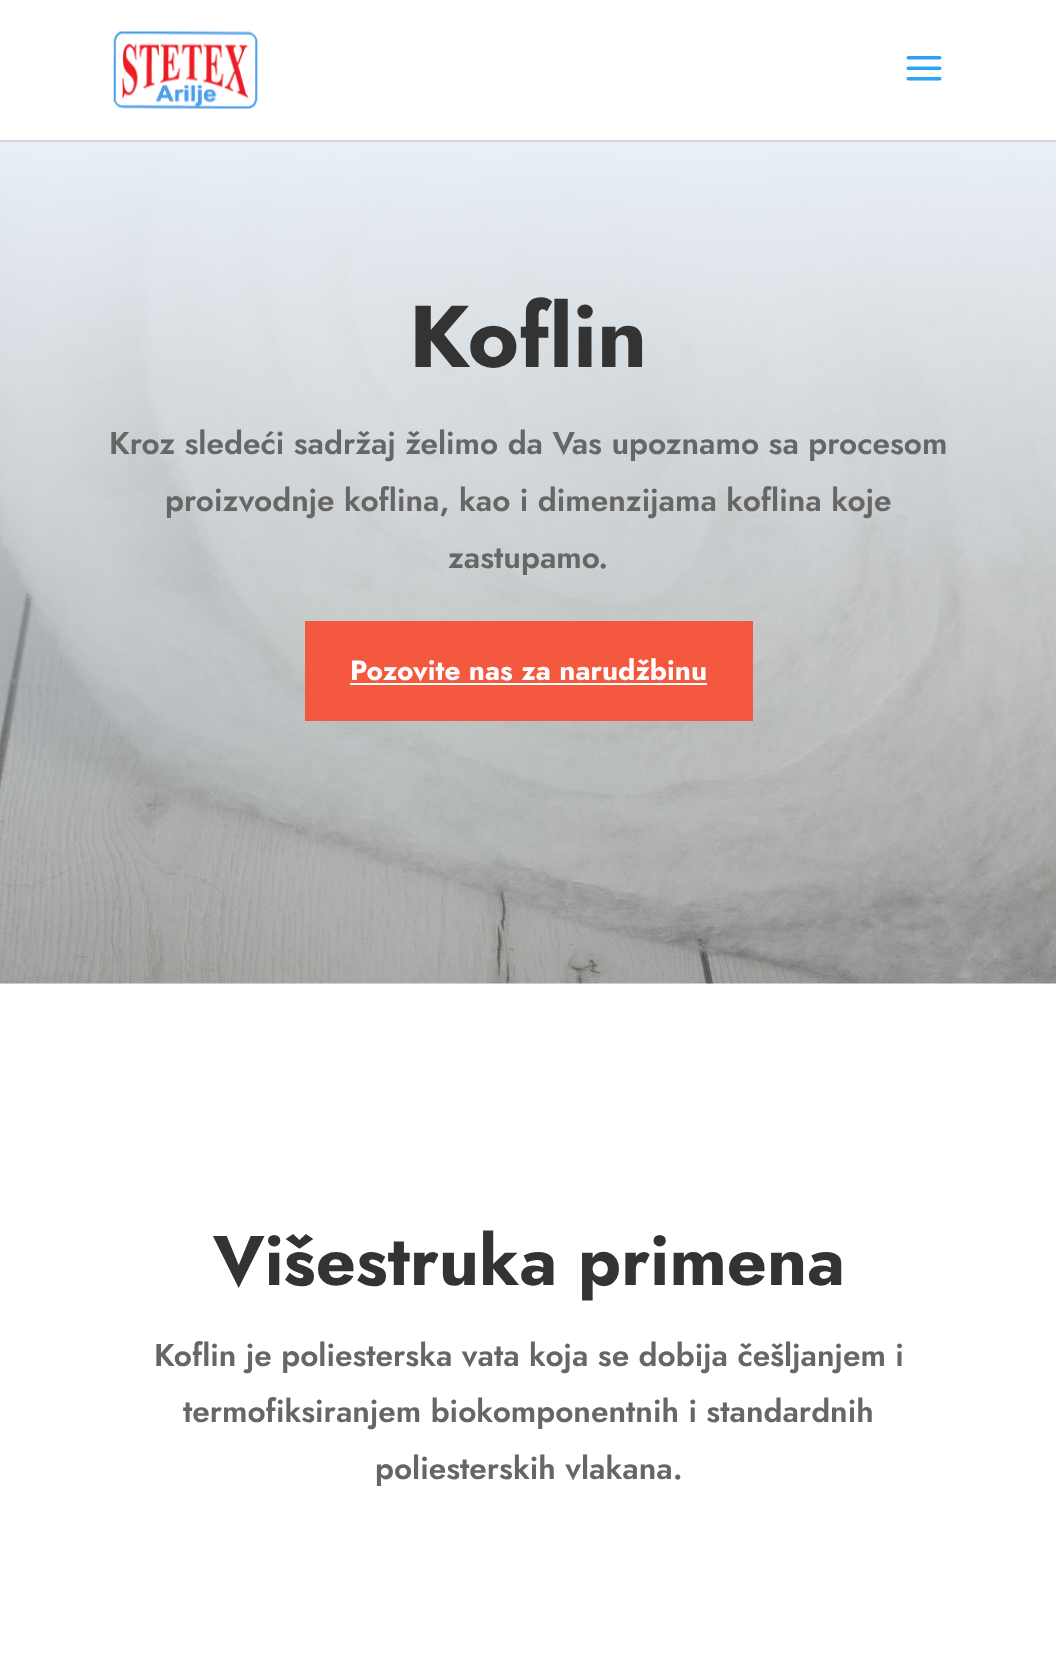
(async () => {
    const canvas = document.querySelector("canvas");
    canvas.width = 1056;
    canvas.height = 1666;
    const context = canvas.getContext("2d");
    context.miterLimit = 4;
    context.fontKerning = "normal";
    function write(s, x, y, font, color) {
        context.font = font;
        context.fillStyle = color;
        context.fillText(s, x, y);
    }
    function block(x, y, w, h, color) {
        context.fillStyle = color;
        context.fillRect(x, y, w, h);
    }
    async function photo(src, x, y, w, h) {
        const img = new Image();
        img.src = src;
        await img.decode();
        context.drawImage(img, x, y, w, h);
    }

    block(0, 0, 1056, 1666, "rgb(255, 255, 255)");
    block(0, 140, 1056, 2, "rgb(210, 216, 221)");
    await photo("media/1.png", 113, 31, 145, 78);
    await photo("media/2.png", 906, 56, 36, 25);
    await photo("media/3.png", 0, 142, 1056, 842);
    write("Koflin", 409, 367, "bold 87.5px Jost", "rgb(51, 51, 51)");
    write("Kroz sledeći sadržaj želimo da Vas upoznamo sa procesom", 109, 454, "600 31.5px Jost", "rgb(102, 102, 102)");
    write("proizvodnje koflina, kao i dimenzijama koflina koje", 165, 511, "600 31.5px Jost", "rgb(102, 102, 102)");
    write("zastupamo.", 448, 568, "600 31.5px Jost", "rgb(102, 102, 102)");
    block(305, 621, 448, 100, "rgb(244, 88, 63)");
    write("Pozovite nas za narudžbinu", 350, 680, "bold 28px Jost", "rgb(255, 255, 255)");
    block(350, 683, 357, 2, "rgb(255, 255, 255)");
    write("Višestruka primena", 213, 1285, "bold 70px Jost", "rgb(51, 51, 51)");
    write("Koflin je poliesterska vata koja se dobija češljanjem i", 154, 1366, "600 31.5px Jost", "rgb(102, 102, 102)");
    write("termofiksiranjem biokomponentnih i standardnih", 183, 1422, "600 31.5px Jost", "rgb(102, 102, 102)");
    write("poliesterskih vlakana.", 375, 1479, "600 31.5px Jost", "rgb(102, 102, 102)");
})();
